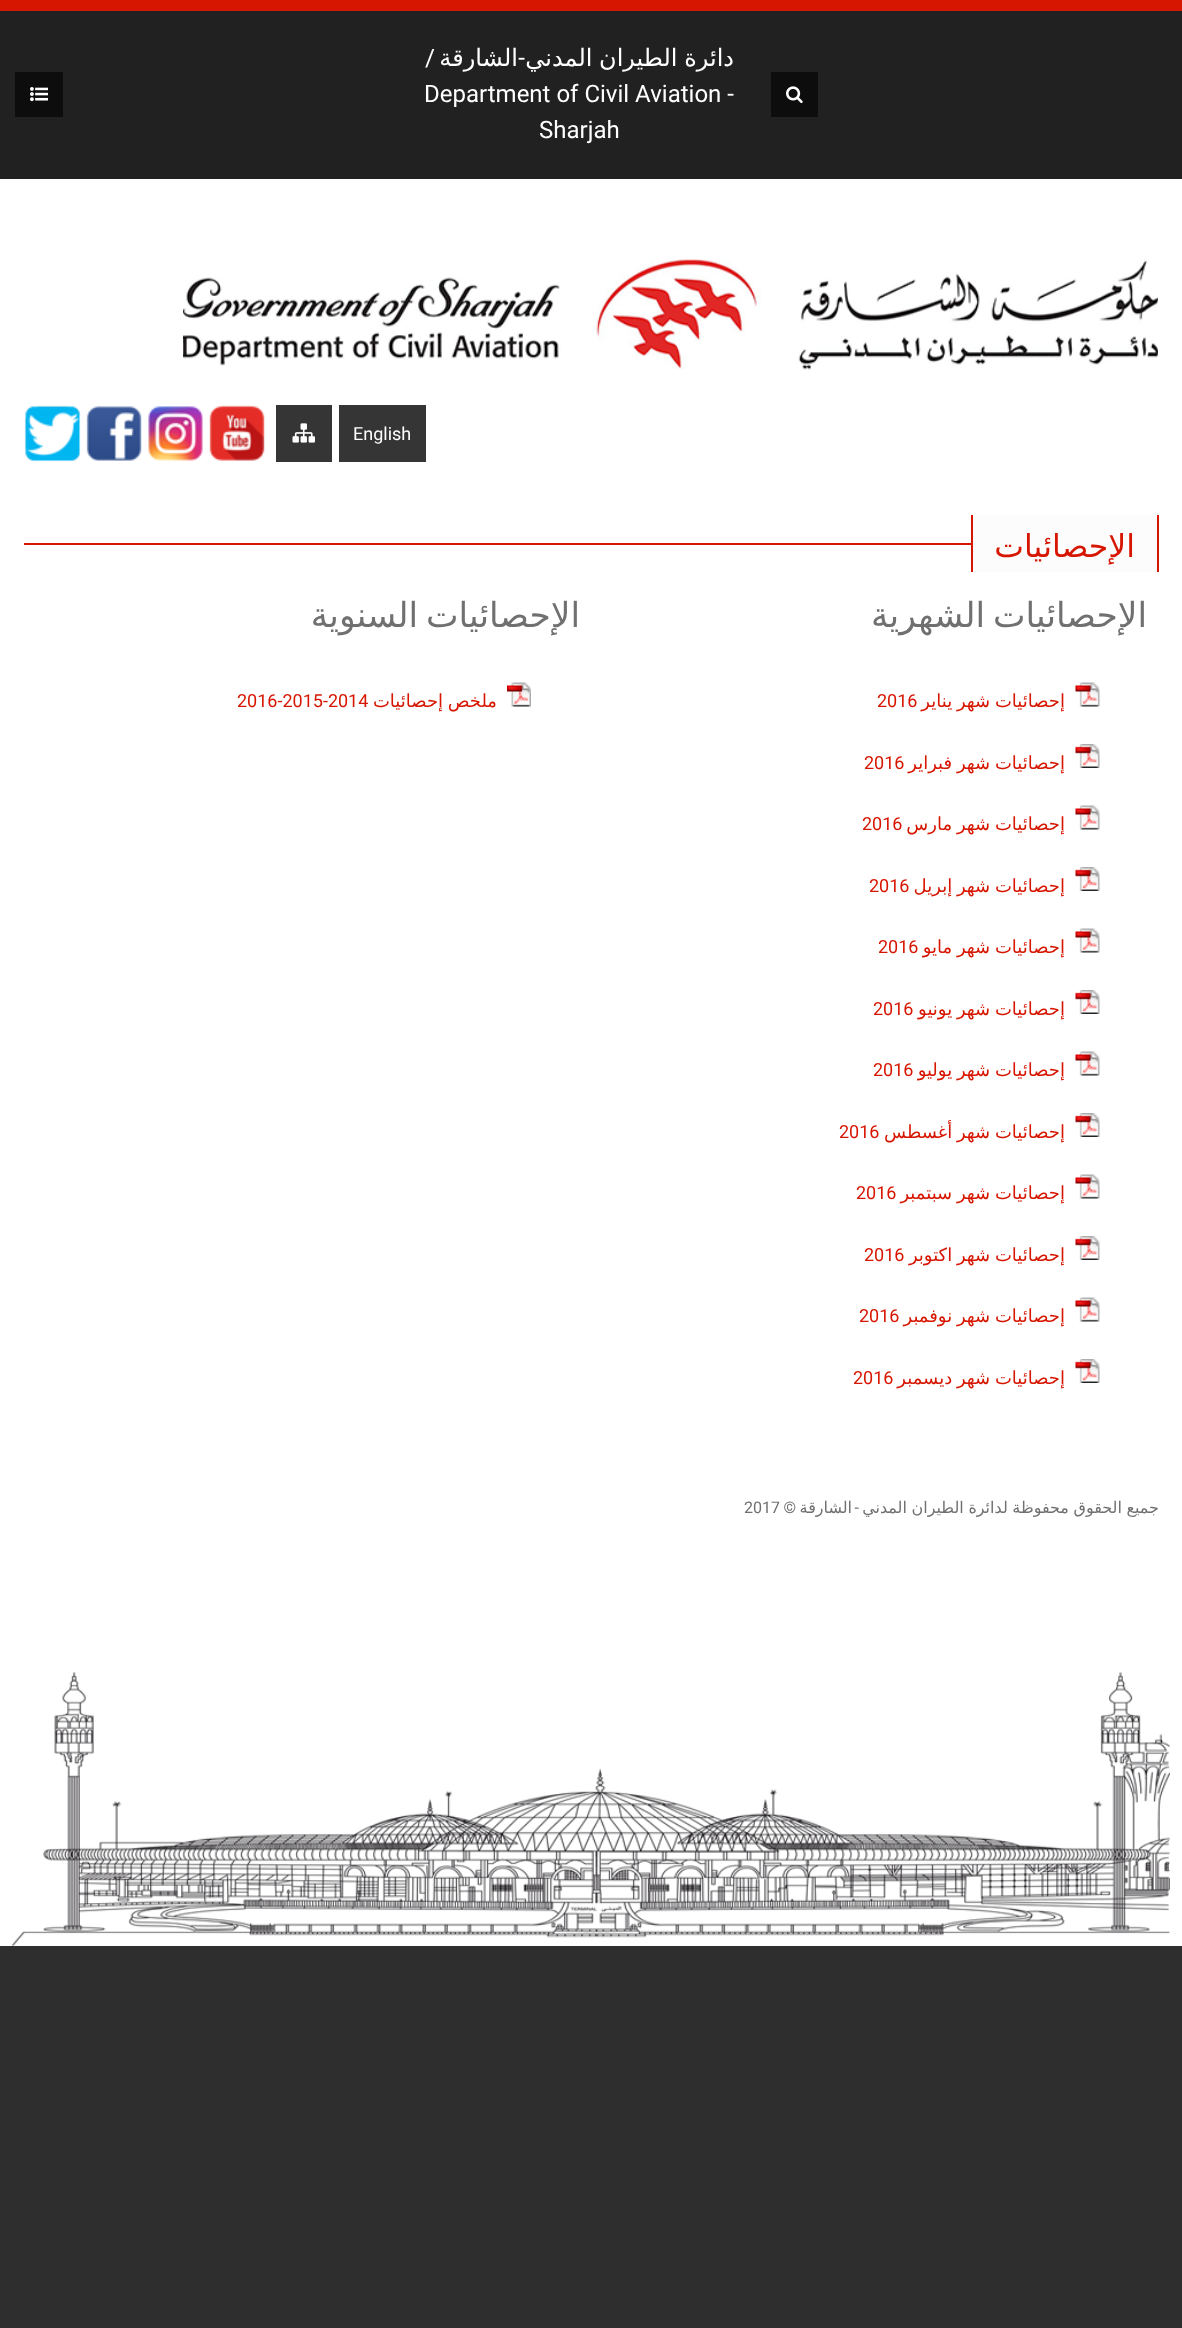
(async () => {
    const canvas = document.querySelector("canvas");
    canvas.width = 1182;
    canvas.height = 2328;
    const context = canvas.getContext("2d");
    context.miterLimit = 4;
    context.fontKerning = "normal";
    function write(s, x, y, font, color) {
        context.font = font;
        context.fillStyle = color;
        context.fillText(s, x, y);
    }
    function block(x, y, w, h, color) {
        context.fillStyle = color;
        context.fillRect(x, y, w, h);
    }
    async function photo(src, x, y, w, h) {
        const img = new Image();
        img.src = src;
        await img.decode();
        context.drawImage(img, x, y, w, h);
    }

    block(0, 0, 1182, 2328, "rgb(46, 46, 46)");
    block(0, 179, 1182, 1767, "rgb(255, 255, 255)");
    block(0, 0, 1182, 11, "rgb(215, 22, 2)");
    block(0, 11, 1182, 168, "rgb(33, 33, 33)");
    block(771, 72, 47, 45, "rgb(13, 13, 13)");
    await photo("media/1.png", 786, 86, 17, 18);
    context.wordSpacing = "-1px";
    context.direction = "rtl";
    write("دائرة الطيران المدني", 734, 66, "24px DejaVu Sans", "rgb(255, 255, 255)");
    context.wordSpacing = "0px";
    write("-", 525, 66, "24px Roboto", "rgb(255, 255, 255)");
    write("الشارقة", 518, 66, "24px DejaVu Sans", "rgb(255, 255, 255)");
    write("/", 435, 66, "24px Roboto", "rgb(255, 255, 255)");
    context.direction = "ltr";
    write("Department of Civil Aviation -", 424, 102, "24px Roboto", "rgb(255, 255, 255)");
    write("Sharjah", 539, 138, "24px Roboto", "rgb(255, 255, 255)");
    block(15, 72, 48, 45, "rgb(13, 13, 13)");
    await photo("media/2.png", 30, 87, 18, 15);
    await photo("media/3.png", 183, 259, 975, 111);
    block(339, 405, 87, 57, "rgb(53, 53, 53)");
    write("English", 353, 440, "18px Roboto", "rgb(255, 255, 255)");
    block(276, 405, 56, 57, "rgb(53, 53, 53)");
    await photo("media/4.png", 292, 423, 23, 20);
    await photo("media/5.png", 209, 405, 56, 56);
    await photo("media/6.png", 148, 406, 55, 55);
    await photo("media/7.png", 86, 406, 56, 55);
    await photo("media/8.png", 24, 405, 57, 57);
    block(973, 515, 184, 57, "rgb(252, 252, 252)");
    block(1157, 515, 2, 57, "rgb(215, 22, 2)");
    block(971, 515, 2, 57, "rgb(215, 22, 2)");
    context.direction = "rtl";
    write("الإحصائيات", 1135, 557, "31.5px DejaVu Sans", "rgb(215, 22, 2)");
    block(24, 543, 947, 2, "rgb(215, 22, 2)");
    context.wordSpacing = "-3px";
    write("الإحصائيات الشهرية", 1147, 627, "34.5px DejaVu Sans", "rgb(112, 112, 112)");
    await photo("media/9.png", 1075, 682, 25, 25);
    context.wordSpacing = "-1px";
    write("إحصائيات شهر يناير", 1065, 707, "18px DejaVu Sans", "rgb(215, 22, 2)");
    context.wordSpacing = "0px";
    context.direction = "ltr";
    write("2016", 877, 707, "18px Roboto", "rgb(215, 22, 2)");
    await photo("media/10.png", 1075, 744, 25, 24);
    context.wordSpacing = "-1px";
    context.direction = "rtl";
    write("إحصائيات شهر فبراير", 1065, 769, "18px DejaVu Sans", "rgb(215, 22, 2)");
    context.wordSpacing = "0px";
    context.direction = "ltr";
    write("2016", 864, 769, "18px Roboto", "rgb(215, 22, 2)");
    await photo("media/9.png", 1075, 805, 25, 25);
    context.wordSpacing = "-1px";
    context.direction = "rtl";
    write("إحصائيات شهر مارس", 1065, 830, "18px DejaVu Sans", "rgb(215, 22, 2)");
    context.wordSpacing = "0px";
    context.direction = "ltr";
    write("2016", 862, 830, "18px Roboto", "rgb(215, 22, 2)");
    await photo("media/10.png", 1075, 867, 25, 24);
    context.wordSpacing = "-1px";
    context.direction = "rtl";
    write("إحصائيات شهر إبريل", 1065, 892, "18px DejaVu Sans", "rgb(215, 22, 2)");
    context.wordSpacing = "0px";
    context.direction = "ltr";
    write("2016", 869, 892, "18px Roboto", "rgb(215, 22, 2)");
    await photo("media/9.png", 1075, 928, 25, 25);
    context.wordSpacing = "-1px";
    context.direction = "rtl";
    write("إحصائيات شهر مايو", 1065, 953, "18px DejaVu Sans", "rgb(215, 22, 2)");
    context.wordSpacing = "0px";
    context.direction = "ltr";
    write("2016", 878, 953, "18px Roboto", "rgb(215, 22, 2)");
    await photo("media/10.png", 1075, 990, 25, 24);
    context.wordSpacing = "-1px";
    context.direction = "rtl";
    write("إحصائيات شهر يونيو", 1065, 1015, "18px DejaVu Sans", "rgb(215, 22, 2)");
    context.wordSpacing = "0px";
    context.direction = "ltr";
    write("2016", 873, 1015, "18px Roboto", "rgb(215, 22, 2)");
    await photo("media/9.png", 1075, 1051, 25, 25);
    context.wordSpacing = "-1px";
    context.direction = "rtl";
    write("إحصائيات شهر يوليو", 1065, 1076, "18px DejaVu Sans", "rgb(215, 22, 2)");
    context.wordSpacing = "0px";
    context.direction = "ltr";
    write("2016", 873, 1076, "18px Roboto", "rgb(215, 22, 2)");
    await photo("media/10.png", 1075, 1113, 25, 24);
    context.wordSpacing = "-1px";
    context.direction = "rtl";
    write("إحصائيات شهر أغسطس", 1065, 1138, "18px DejaVu Sans", "rgb(215, 22, 2)");
    context.wordSpacing = "0px";
    context.direction = "ltr";
    write("2016", 839, 1138, "18px Roboto", "rgb(215, 22, 2)");
    await photo("media/9.png", 1075, 1174, 25, 25);
    context.wordSpacing = "-1px";
    context.direction = "rtl";
    write("إحصائيات شهر سبتمبر", 1065, 1199, "18px DejaVu Sans", "rgb(215, 22, 2)");
    context.wordSpacing = "0px";
    context.direction = "ltr";
    write("2016", 856, 1199, "18px Roboto", "rgb(215, 22, 2)");
    await photo("media/10.png", 1075, 1236, 25, 24);
    context.wordSpacing = "-1px";
    context.direction = "rtl";
    write("إحصائيات شهر اكتوبر", 1065, 1261, "18px DejaVu Sans", "rgb(215, 22, 2)");
    context.wordSpacing = "0px";
    context.direction = "ltr";
    write("2016", 864, 1261, "18px Roboto", "rgb(215, 22, 2)");
    await photo("media/9.png", 1075, 1297, 25, 25);
    context.wordSpacing = "-1px";
    context.direction = "rtl";
    write("إحصائيات شهر نوفمبر", 1065, 1322, "18px DejaVu Sans", "rgb(215, 22, 2)");
    context.wordSpacing = "0px";
    context.direction = "ltr";
    write("2016", 859, 1322, "18px Roboto", "rgb(215, 22, 2)");
    await photo("media/10.png", 1075, 1359, 25, 24);
    context.wordSpacing = "-1px";
    context.direction = "rtl";
    write("إحصائيات شهر ديسمبر", 1065, 1384, "18px DejaVu Sans", "rgb(215, 22, 2)");
    context.wordSpacing = "0px";
    context.direction = "ltr";
    write("2016", 853, 1384, "18px Roboto", "rgb(215, 22, 2)");
    context.wordSpacing = "-3px";
    context.direction = "rtl";
    write("الإحصائيات السنوية", 580, 627, "34.5px DejaVu Sans", "rgb(112, 112, 112)");
    await photo("media/11.png", 507, 682, 24, 25);
    context.wordSpacing = "-1px";
    write("ملخص إحصائيات", 497, 707, "18px DejaVu Sans", "rgb(215, 22, 2)");
    context.wordSpacing = "0px";
    context.direction = "ltr";
    write("2016-2015-2014", 237, 707, "18px Roboto", "rgb(215, 22, 2)");
    await photo("media/12.png", 12, 1672, 1158, 274);
    context.wordSpacing = "-0.5px";
    context.direction = "rtl";
    write("جميع الحقوق محفوظة لدائرة الطيران المدني", 1159, 1513, "16px DejaVu Sans", "rgb(112, 112, 112)");
    context.wordSpacing = "0px";
    write("-", 859, 1513, "16px Roboto", "rgb(112, 112, 112)");
    write("الشارقة", 852, 1513, "16px DejaVu Sans", "rgb(112, 112, 112)");
    write("©", 796, 1513, "16px Roboto", "rgb(112, 112, 112)");
    context.direction = "ltr";
    write("2017", 744, 1513, "16px Roboto", "rgb(112, 112, 112)");
})();
